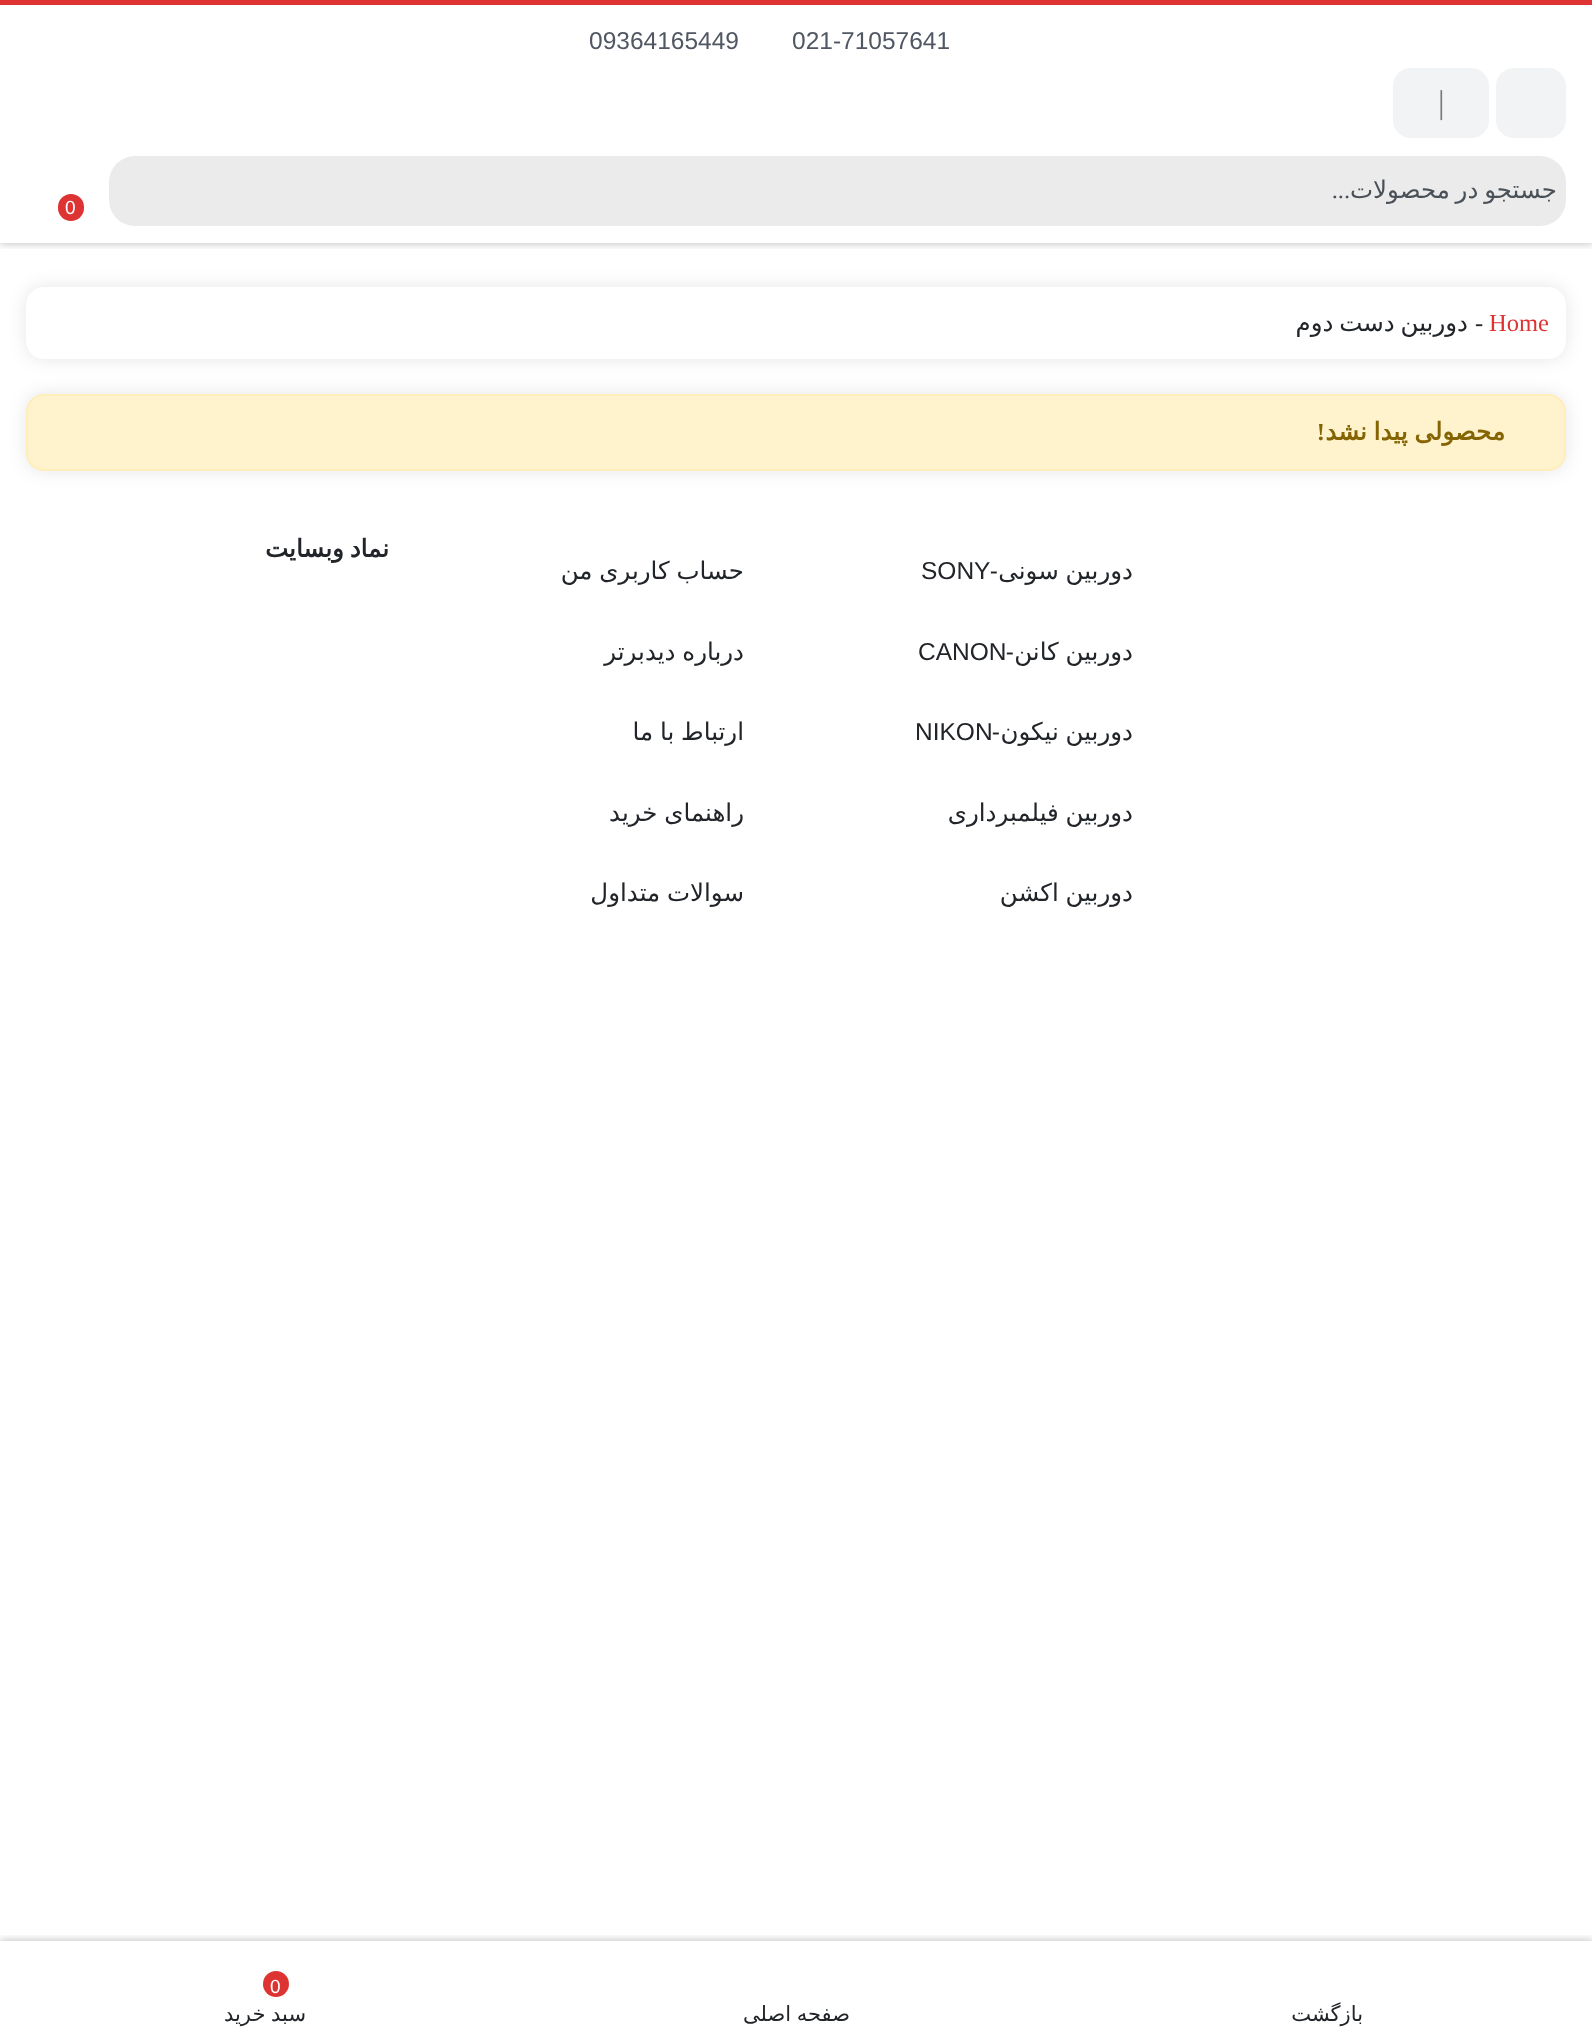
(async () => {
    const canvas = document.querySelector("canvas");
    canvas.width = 1592;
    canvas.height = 2036;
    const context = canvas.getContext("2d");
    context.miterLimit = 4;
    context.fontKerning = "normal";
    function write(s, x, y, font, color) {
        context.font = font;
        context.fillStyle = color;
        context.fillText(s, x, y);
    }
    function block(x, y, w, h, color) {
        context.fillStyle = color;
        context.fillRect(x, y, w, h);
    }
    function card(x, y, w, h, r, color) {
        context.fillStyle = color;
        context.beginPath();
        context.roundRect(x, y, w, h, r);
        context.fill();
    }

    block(0, 0, 1592, 2036, "rgb(255, 255, 255)");
    context.save();
    context.beginPath();
    context.rect(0, 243, 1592, 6);
    context.clip();
    context.fillStyle = "rgba(0, 0, 0, 0.19)";
    context.filter = "blur(3.5px)";
    context.beginPath();
    context.rect(0, 2, 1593, 243);
    context.fill();
    context.filter = "none";
    context.restore();
    block(0, 0, 1592, 5, "rgb(221, 51, 51)");
    write("021-71057641", 792, 49, "24.5px Liberation Sans", "rgb(80, 87, 99)");
    write("09364165449", 589, 49, "24.5px Liberation Sans", "rgb(80, 87, 99)");
    context.fillStyle = "rgb(241, 243, 244)";
    context.beginPath();
    context.roundRect(1497, 69, 68, 68, 17);
    context.fill();
    context.strokeStyle = "rgb(241, 243, 244)";
    context.lineWidth = 2;
    context.stroke();
    context.beginPath();
    context.roundRect(1394, 69, 94, 68, 17);
    context.fill();
    context.stroke();
    write("|", 1438, 113, "33px Liberation Serif", "rgb(119, 119, 119)");
    context.fillStyle = "rgb(235, 235, 235)";
    context.beginPath();
    context.roundRect(163, 156, 1403, 70, [0, 26, 26, 0]);
    context.fill();
    context.wordSpacing = "-2px";
    context.direction = "rtl";
    write("جستجو در محصولات", 1557, 198, "24.5px DejaVu Sans", "rgb(73, 80, 87)");
    context.wordSpacing = "0px";
    write("...", 1350, 198, "24.5px Liberation Serif", "rgb(73, 80, 87)");
    context.fillStyle = "rgb(235, 235, 235)";
    context.beginPath();
    context.roundRect(109, 156, 54, 70, [26, 0, 0, 26]);
    context.fill();
    card(58, 194, 26, 27, 13, "rgb(221, 51, 51)");
    context.direction = "ltr";
    write("0", 65, 214, "19px Liberation Sans", "rgb(255, 255, 255)");
    context.fillStyle = "rgba(0, 0, 0, 0.1)";
    context.filter = "blur(9px)";
    context.beginPath();
    context.roundRect(26, 287, 1540, 72, 18);
    context.fill();
    context.filter = "none";
    card(26, 287, 1540, 72, 18, "rgb(255, 255, 255)");
    write("Home", 1489, 331, "24.5px Liberation Serif", "rgb(221, 51, 51)");
    write("-", 1475, 331, "24.5px Liberation Serif", "rgb(33, 37, 41)");
    context.wordSpacing = "-2px";
    context.direction = "rtl";
    write("دوربین دست دوم", 1468, 331, "24.5px DejaVu Sans", "rgb(33, 37, 41)");
    context.fillStyle = "rgba(0, 0, 0, 0.1)";
    context.filter = "blur(9px)";
    context.beginPath();
    context.roundRect(26, 394, 1540, 77, 18);
    context.fill();
    context.filter = "none";
    context.fillStyle = "rgb(255, 243, 205)";
    context.beginPath();
    context.roundRect(27, 395, 1538, 75, 17);
    context.fill();
    context.strokeStyle = "rgb(255, 238, 186)";
    context.stroke();
    context.wordSpacing = "-1px";
    write("محصولی پیدا نشد", 1505, 440, "bold 24.5px DejaVu Sans", "rgb(133, 100, 4)");
    context.wordSpacing = "0px";
    write("!", 1325, 440, "bold 24.5px Liberation Serif", "rgb(133, 100, 4)");
    context.wordSpacing = "-2px";
    write("نماد وبسایت", 389, 557, "bold 24.5px DejaVu Sans", "rgb(33, 37, 41)");
    context.wordSpacing = "-1px";
    write("دوربین سونی", 1133, 579, "24.5px DejaVu Sans", "rgb(33, 37, 41)");
    context.wordSpacing = "0px";
    write("-", 998, 579, "24.5px Liberation Sans", "rgb(33, 37, 41)");
    context.direction = "ltr";
    write("SONY", 921, 579, "24.5px Liberation Sans", "rgb(33, 37, 41)");
    context.wordSpacing = "-1px";
    context.direction = "rtl";
    write("دوربین کانن", 1133, 660, "24.5px DejaVu Sans", "rgb(33, 37, 41)");
    context.wordSpacing = "0px";
    write("-", 1014, 660, "24.5px Liberation Sans", "rgb(33, 37, 41)");
    context.direction = "ltr";
    write("CANON", 918, 660, "24.5px Liberation Sans", "rgb(33, 37, 41)");
    context.wordSpacing = "-1px";
    context.direction = "rtl";
    write("دوربین نیکون", 1133, 740, "24.5px DejaVu Sans", "rgb(33, 37, 41)");
    context.wordSpacing = "0px";
    write("-", 1000, 740, "24.5px Liberation Sans", "rgb(33, 37, 41)");
    context.direction = "ltr";
    write("NIKON", 915, 740, "24.5px Liberation Sans", "rgb(33, 37, 41)");
    context.wordSpacing = "-1px";
    context.direction = "rtl";
    write("دوربین فیلمبرداری", 1133, 821, "24.5px DejaVu Sans", "rgb(33, 37, 41)");
    write("دوربین اکشن", 1133, 901, "24.5px DejaVu Sans", "rgb(33, 37, 41)");
    write("حساب کاربری من", 744, 579, "24.5px DejaVu Sans", "rgb(33, 37, 41)");
    write("درباره دیدبرتر", 744, 660, "24.5px DejaVu Sans", "rgb(33, 37, 41)");
    write("ارتباط با ما", 744, 740, "24.5px DejaVu Sans", "rgb(33, 37, 41)");
    write("راهنمای خرید", 744, 821, "24.5px DejaVu Sans", "rgb(33, 37, 41)");
    write("سوالات متداول", 744, 901, "24.5px DejaVu Sans", "rgb(33, 37, 41)");
    context.save();
    context.beginPath();
    context.rect(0, 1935, 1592, 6);
    context.clip();
    context.fillStyle = "rgba(0, 0, 0, 0.19)";
    context.filter = "blur(3.5px)";
    context.beginPath();
    context.rect(0, 1939, 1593, 96);
    context.fill();
    context.filter = "none";
    context.restore();
    context.wordSpacing = "0px";
    write("بازگشت", 1363, 2021, "21px DejaVu Sans", "rgb(33, 37, 41)");
    context.wordSpacing = "-1px";
    write("صفحه اصلی", 850, 2021, "21px DejaVu Sans", "rgb(33, 37, 41)");
    context.fillStyle = "rgb(221, 51, 51)";
    context.beginPath();
    context.arc(276, 1984, 13, 0, Math.PI * 2);
    context.fill();
    context.wordSpacing = "0px";
    context.direction = "ltr";
    write("0", 270, 1993, "19px Liberation Sans", "rgb(255, 255, 255)");
    context.wordSpacing = "-1px";
    context.direction = "rtl";
    write("سبد خرید", 306, 2021, "21px DejaVu Sans", "rgb(33, 37, 41)");
})();
